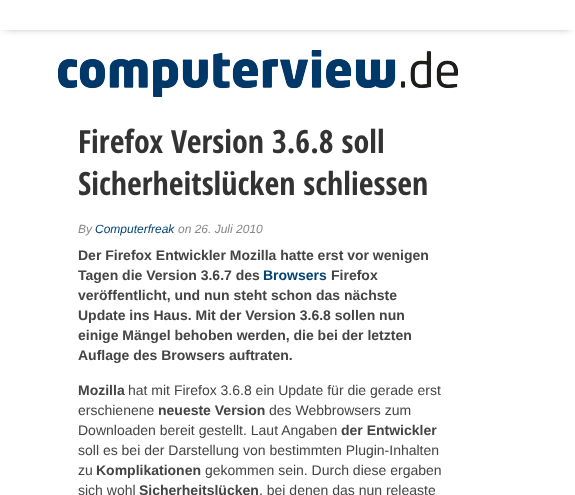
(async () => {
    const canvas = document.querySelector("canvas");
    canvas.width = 575;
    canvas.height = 495;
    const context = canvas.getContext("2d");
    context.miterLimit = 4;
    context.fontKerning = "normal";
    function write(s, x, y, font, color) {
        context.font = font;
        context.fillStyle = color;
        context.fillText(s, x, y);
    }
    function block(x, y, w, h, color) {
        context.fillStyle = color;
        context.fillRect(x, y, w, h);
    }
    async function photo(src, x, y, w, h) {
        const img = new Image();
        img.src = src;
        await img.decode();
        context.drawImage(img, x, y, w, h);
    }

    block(0, 0, 575, 495, "rgb(255, 255, 255)");
    context.fillStyle = "rgb(85, 85, 85)";
    context.filter = "blur(5px)";
    context.beginPath();
    context.rect(5, 6, 565, 20);
    context.fill();
    context.filter = "none";
    block(0, 0, 575, 30, "rgb(255, 255, 255)");
    await photo("media/1.png", 58, 50, 400, 47);
    write("Firefox Version 3.6.8 soll", 78, 153, "bold 32px Open Sans Condensed", "rgb(51, 51, 51)");
    write("Sicherheitslücken schliessen", 78, 195, "bold 32px Open Sans Condensed", "rgb(51, 51, 51)");
    write("By", 78, 233, "italic 12px Liberation Sans", "rgb(136, 136, 136)");
    write("Computerfreak", 95, 233, "italic 12px Liberation Sans", "rgb(0, 66, 118)");
    write("on 26. Juli 2010", 178, 233, "italic 12px Liberation Sans", "rgb(136, 136, 136)");
    write("Der Firefox Entwickler Mozilla hatte erst vor wenigen", 78, 260, "bold 14px Liberation Sans", "rgb(68, 68, 68)");
    write("Tagen die Version 3.6.7 des", 78, 280, "bold 14px Liberation Sans", "rgb(68, 68, 68)");
    write("Browsers", 263, 280, "bold 14px Liberation Sans", "rgb(0, 66, 118)");
    write("Firefox", 331, 280, "bold 14px Liberation Sans", "rgb(68, 68, 68)");
    write("veröffentlicht, und nun steht schon das nächste", 78, 300, "bold 14px Liberation Sans", "rgb(68, 68, 68)");
    write("Update ins Haus. Mit der Version 3.6.8 sollen nun", 78, 320, "bold 14px Liberation Sans", "rgb(68, 68, 68)");
    write("einige Mängel behoben werden, die bei der letzten", 78, 340, "bold 14px Liberation Sans", "rgb(68, 68, 68)");
    write("Auflage des Browsers auftraten.", 78, 360, "bold 14px Liberation Sans", "rgb(68, 68, 68)");
    write("Mozilla", 78, 395, "bold 14px Liberation Sans", "rgb(68, 68, 68)");
    write("hat mit Firefox 3.6.8 ein Update für die gerade erst", 128, 395, "14px Liberation Sans", "rgb(68, 68, 68)");
    write("erschienene", 78, 415, "14px Liberation Sans", "rgb(68, 68, 68)");
    write("neueste Version", 158, 415, "bold 14px Liberation Sans", "rgb(68, 68, 68)");
    write("des Webbrowsers zum", 269, 415, "14px Liberation Sans", "rgb(68, 68, 68)");
    write("Downloaden bereit gestellt. Laut Angaben", 78, 435, "14px Liberation Sans", "rgb(68, 68, 68)");
    write("der Entwickler", 341, 435, "bold 14px Liberation Sans", "rgb(68, 68, 68)");
    write("soll es bei der Darstellung von bestimmten Plugin-Inhalten", 78, 455, "14px Liberation Sans", "rgb(68, 68, 68)");
    write("zu", 78, 475, "14px Liberation Sans", "rgb(68, 68, 68)");
    write("Komplikationen", 96, 475, "bold 14px Liberation Sans", "rgb(68, 68, 68)");
    write("gekommen sein. Durch diese ergaben", 205, 475, "14px Liberation Sans", "rgb(68, 68, 68)");
    write("sich wohl", 78, 495, "14px Liberation Sans", "rgb(68, 68, 68)");
    write("Sicherheitslücken", 139, 495, "bold 14px Liberation Sans", "rgb(68, 68, 68)");
    write(", bei denen das nun releaste", 259, 495, "14px Liberation Sans", "rgb(68, 68, 68)");
})();
